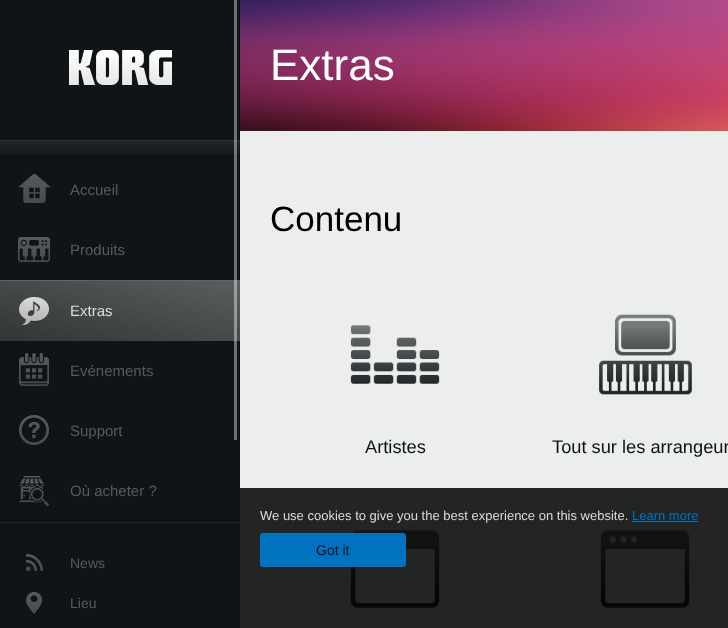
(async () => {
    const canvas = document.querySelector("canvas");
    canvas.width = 728;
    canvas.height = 628;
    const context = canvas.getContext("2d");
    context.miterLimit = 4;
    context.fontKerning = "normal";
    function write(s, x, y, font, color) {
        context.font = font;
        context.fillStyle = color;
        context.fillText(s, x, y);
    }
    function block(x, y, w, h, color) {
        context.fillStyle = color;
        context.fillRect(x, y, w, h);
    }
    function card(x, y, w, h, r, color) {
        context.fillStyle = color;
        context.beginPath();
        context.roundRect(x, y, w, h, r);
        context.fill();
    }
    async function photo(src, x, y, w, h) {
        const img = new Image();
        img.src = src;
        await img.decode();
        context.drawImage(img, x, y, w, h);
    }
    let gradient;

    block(0, 0, 728, 628, "rgb(15, 20, 22)");
    await photo("media/1.png", 0, 141, 240, 14);
    block(0, 140, 240, 1, "rgb(45, 49, 51)");
    gradient = context.createLinearGradient(106, 367, 134, 255);
    gradient.addColorStop(0, "rgb(50, 53, 54)");
    gradient.addColorStop(1, "rgb(91, 94, 95)");
    context.fillStyle = gradient;
    context.fillRect(0, 281, 240, 60);
    block(0, 280, 240, 1, "rgb(97, 100, 101)");
    block(234, 0, 3, 440, "rgba(255, 255, 255, 0.4)");
    await photo("media/2.png", 69, 50, 103, 36);
    await photo("media/3.png", 19, 174, 31, 29);
    write("Accueil", 70, 195, "15px Liberation Sans", "rgb(87, 91, 92)");
    await photo("media/4.png", 18, 237, 32, 25);
    write("Produits", 70, 255, "15px Liberation Sans", "rgb(87, 91, 92)");
    await photo("media/5.png", 19, 297, 30, 29);
    write("Extras", 70, 316, "15px Liberation Sans", "rgb(220, 220, 220)");
    await photo("media/6.png", 19, 353, 30, 33);
    write("Evénements", 70, 376, "15px Liberation Sans", "rgb(87, 91, 92)");
    await photo("media/7.png", 19, 415, 30, 30);
    write("Support", 70, 436, "15px Liberation Sans", "rgb(87, 91, 92)");
    await photo("media/8.png", 19, 476, 30, 30);
    write("Où acheter ?", 70, 496, "15px Liberation Sans", "rgb(87, 91, 92)");
    block(0, 522, 240, 1, "rgb(34, 38, 40)");
    await photo("media/9.png", 26, 554, 17, 17);
    write("News", 70, 568, "14px Liberation Sans", "rgb(87, 91, 92)");
    await photo("media/10.png", 26, 592, 16, 22);
    write("Lieu", 70, 608, "14px Liberation Sans", "rgb(87, 91, 92)");
    await photo("media/11.png", 240, 0, 488, 131);
    write("Extras", 270, 80, "44px Liberation Sans", "rgb(255, 255, 255)");
    block(240, 131, 488, 357, "rgb(236, 237, 237)");
    block(240, 488, 488, 140, "rgb(35, 36, 36)");
    write("Contenu", 270, 231, "35px Liberation Sans", "rgb(0, 0, 0)");
    await photo("media/12.png", 350, 325, 90, 59);
    write("Artistes", 365, 453, "18.25px Liberation Sans", "rgb(13, 19, 20)");
    await photo("media/13.png", 599, 314, 93, 81);
    write("Tout sur les arrangeur", 552, 453, "18.25px Liberation Sans", "rgb(13, 19, 20)");
    await photo("media/14.png", 350, 530, 90, 78);
    await photo("media/14.png", 600, 530, 90, 78);
    write("We use cookies to give you the best experience on this website.", 260, 520, "13px Liberation Sans", "rgb(220, 220, 220)");
    write("Learn more", 632, 520, "13px Liberation Sans", "rgb(0, 114, 192)");
    block(632, 521, 66, 1, "rgb(0, 114, 192)");
    card(260, 533, 146, 34, 3, "rgb(0, 114, 192)");
    write("Got it", 316, 555, "14px Liberation Sans", "rgb(13, 19, 20)");
})();
